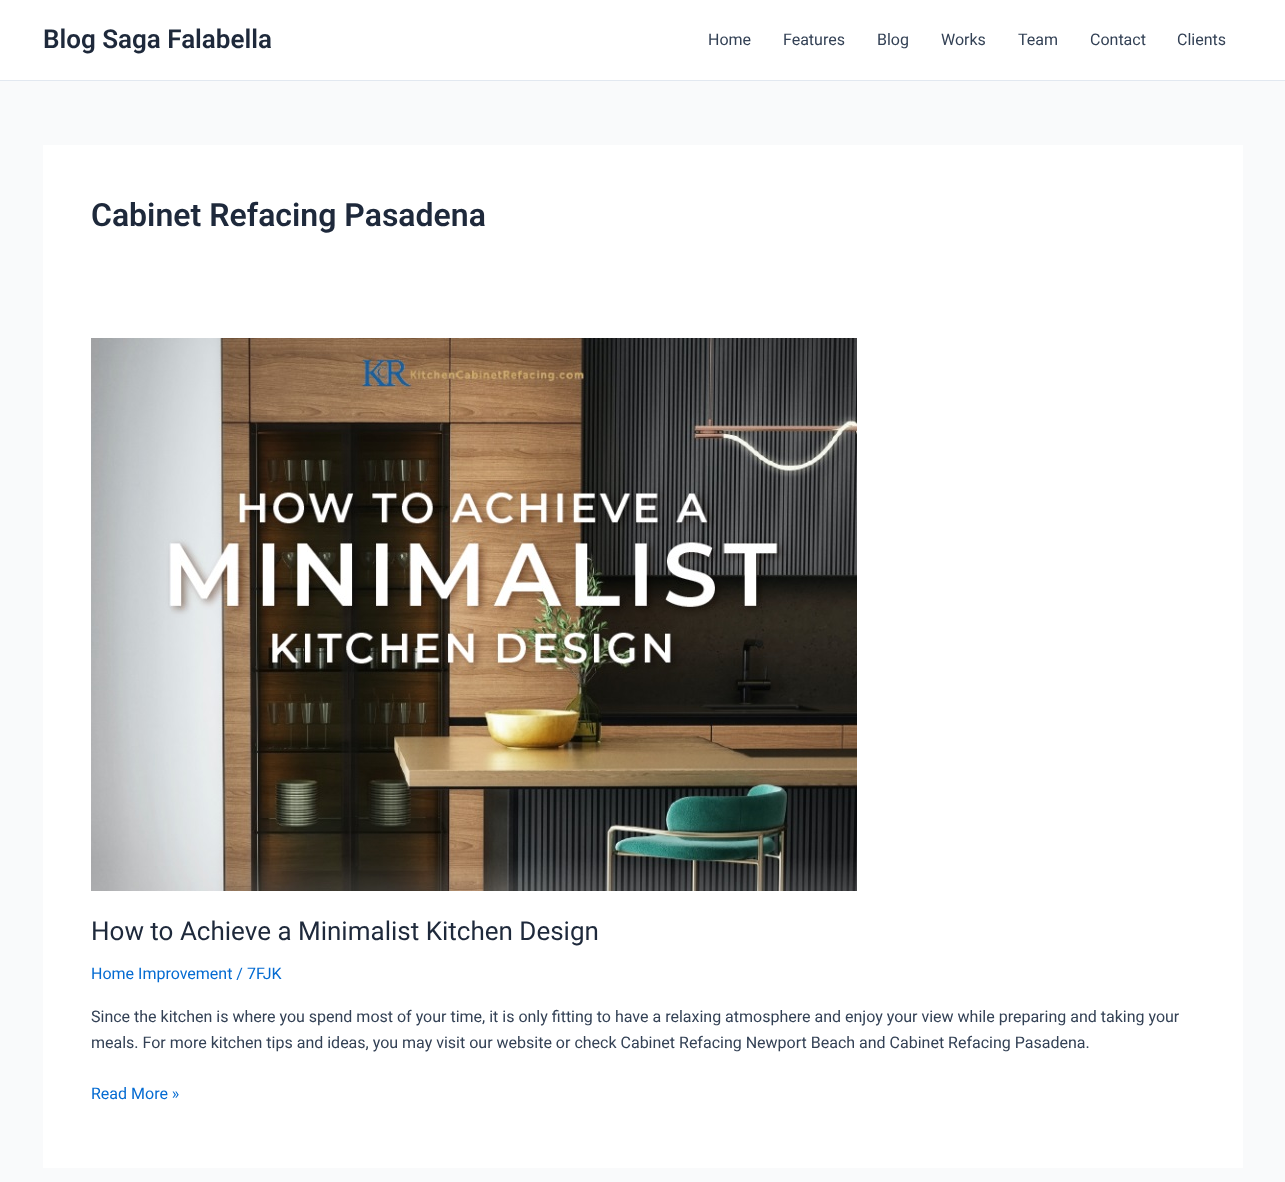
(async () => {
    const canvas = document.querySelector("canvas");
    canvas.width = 1285;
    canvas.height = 1182;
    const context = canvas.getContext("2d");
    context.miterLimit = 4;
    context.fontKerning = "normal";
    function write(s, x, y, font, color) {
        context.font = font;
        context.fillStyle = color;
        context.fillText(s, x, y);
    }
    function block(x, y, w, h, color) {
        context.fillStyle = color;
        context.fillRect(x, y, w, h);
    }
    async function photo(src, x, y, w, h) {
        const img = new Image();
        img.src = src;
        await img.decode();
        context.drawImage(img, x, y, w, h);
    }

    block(0, 0, 1285, 1182, "rgb(249, 250, 251)");
    block(0, 0, 1285, 80, "rgb(255, 255, 255)");
    block(0, 80, 1285, 1, "rgb(226, 232, 240)");
    write("Blog Saga Falabella", 43, 48, "600 26px Roboto", "rgb(30, 41, 59)");
    write("Home", 708, 45, "16px Roboto", "rgb(51, 65, 85)");
    write("Features", 783, 45, "16px Roboto", "rgb(51, 65, 85)");
    write("Blog", 877, 45, "16px Roboto", "rgb(51, 65, 85)");
    write("Works", 941, 45, "16px Roboto", "rgb(51, 65, 85)");
    write("Team", 1018, 45, "16px Roboto", "rgb(51, 65, 85)");
    write("Contact", 1090, 45, "16px Roboto", "rgb(51, 65, 85)");
    write("Clients", 1177, 45, "16px Roboto", "rgb(51, 65, 85)");
    block(43, 145, 1200, 1023, "rgb(255, 255, 255)");
    write("Cabinet Refacing Pasadena", 91, 226, "600 32px Roboto", "rgb(30, 41, 59)");
    await photo("media/1.png", 91, 338, 766, 553);
    write("How to Achieve a Minimalist Kitchen Design", 91, 940, "26px Roboto", "rgb(30, 41, 59)");
    write("Home Improvement / 7FJK", 91, 979, "16px Roboto", "rgb(4, 107, 210)");
    write("Since the kitchen is where you spend most of your time, it is only fitting to have a relaxing atmosphere and enjoy your view while preparing and taking your", 91, 1022, "16px Roboto", "rgb(51, 65, 85)");
    write("meals. For more kitchen tips and ideas, you may visit our website or check Cabinet Refacing Newport Beach and Cabinet Refacing Pasadena.", 91, 1048, "16px Roboto", "rgb(51, 65, 85)");
    write("Read More »", 91, 1099, "16px Roboto", "rgb(4, 107, 210)");
})();
